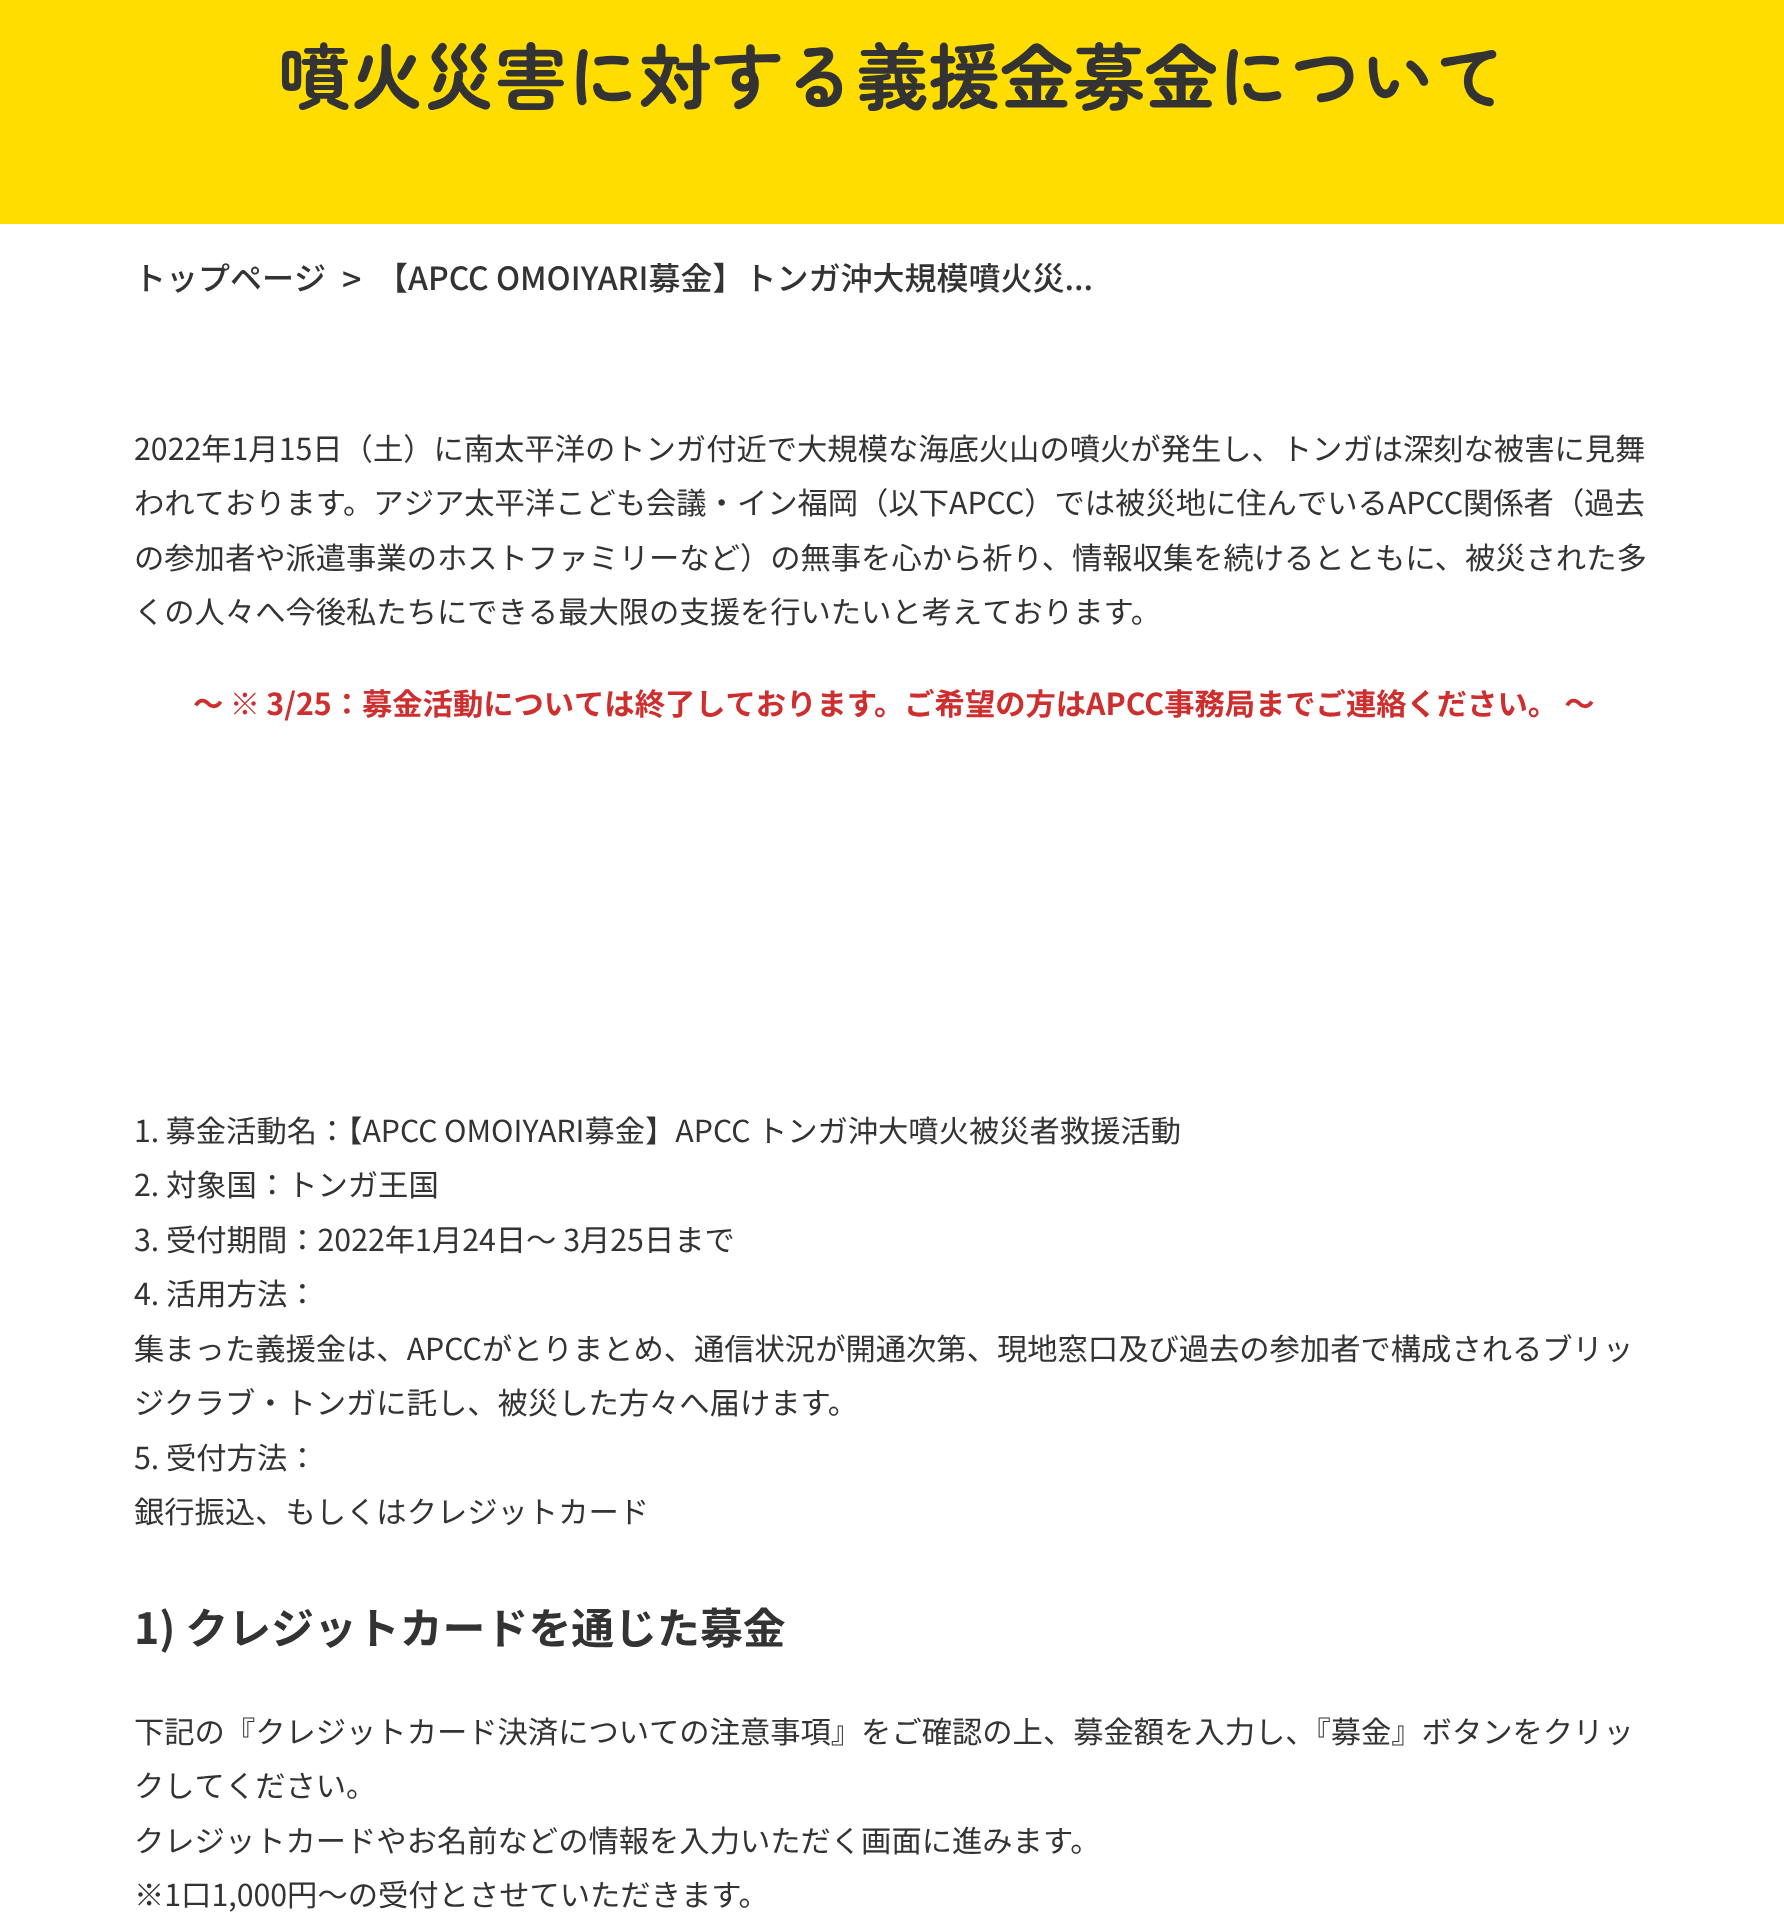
(async () => {
    const canvas = document.querySelector("canvas");
    canvas.width = 1784;
    canvas.height = 1929;
    const context = canvas.getContext("2d");
    context.miterLimit = 4;
    context.fontKerning = "normal";
    function write(s, x, y, font, color) {
        context.font = font;
        context.fillStyle = color;
        context.fillText(s, x, y);
    }
    function block(x, y, w, h, color) {
        context.fillStyle = color;
        context.fillRect(x, y, w, h);
    }

    block(0, 0, 1784, 1929, "rgb(255, 255, 255)");
    block(0, 0, 1784, 224, "rgb(255, 221, 0)");
    write("噴火災害に対する義援金募金について", 278, 104, "bold 72.25px Zen Maru Gothic", "rgb(51, 51, 51)");
    write("トップページ", 134, 290, "500 32px Noto Sans JP", "rgb(51, 51, 51)");
    write(">", 342, 292, "500 34px Noto Sans JP", "rgb(51, 51, 51)");
    write("【APCC OMOIYARI募金】トンガ沖大規模噴火災...", 376, 290, "500 32px Noto Sans JP", "rgb(51, 51, 51)");
    write("2022年1月15日（土）に南太平洋のトンガ付近で大規模な海底火山の噴火が発生し、トンガは深刻な被害に見舞", 134, 460, "30.3px Noto Sans JP", "rgb(51, 51, 51)");
    write("われております。アジア太平洋こども会議・イン福岡（以下APCC）では被災地に住んでいるAPCC関係者（過去", 134, 514, "30.3px Noto Sans JP", "rgb(51, 51, 51)");
    write("の参加者や派遣事業のホストファミリーなど）の無事を心から祈り、情報収集を続けるとともに、被災された多", 134, 569, "30.3px Noto Sans JP", "rgb(51, 51, 51)");
    write("くの人々へ今後私たちにできる最大限の支援を行いたいと考えております。", 134, 623, "30.3px Noto Sans JP", "rgb(51, 51, 51)");
    context.wordSpacing = "-0.5px";
    write("～ ※ 3/25：募金活動については終了しております。ご希望の方はAPCC事務局までご連絡ください。 ～", 193, 715, "bold 30.3px Noto Sans JP", "rgb(207, 46, 46)");
    write("1. 募金活動名：【APCC OMOIYARI募金】APCC トンガ沖大噴火被災者救援活動", 134, 1142, "30.3px Noto Sans JP", "rgb(51, 51, 51)");
    context.wordSpacing = "0px";
    write("2. 対象国：トンガ王国", 134, 1196, "30.3px Noto Sans JP", "rgb(51, 51, 51)");
    write("3. 受付期間：2022年1月24日～ 3月25日まで", 134, 1251, "30.3px Noto Sans JP", "rgb(51, 51, 51)");
    write("4. 活用方法：", 134, 1305, "30.3px Noto Sans JP", "rgb(51, 51, 51)");
    write("集まった義援金は、APCCがとりまとめ、通信状況が開通次第、現地窓口及び過去の参加者で構成されるブリッ", 134, 1360, "30.3px Noto Sans JP", "rgb(51, 51, 51)");
    write("ジクラブ・トンガに託し、被災した方々へ届けます。", 134, 1414, "30.3px Noto Sans JP", "rgb(51, 51, 51)");
    write("5. 受付方法：", 134, 1469, "30.3px Noto Sans JP", "rgb(51, 51, 51)");
    write("銀行振込、もしくはクレジットカード", 134, 1523, "30.3px Noto Sans JP", "rgb(51, 51, 51)");
    write("1) クレジットカードを通じた募金 ", 134, 1644, "bold 42.9px Noto Sans JP", "rgb(51, 51, 51)");
    write("下記の『クレジットカード決済についての注意事項』をご確認の上、募金額を入力し、『募金』ボタンをクリッ", 134, 1743, "30.3px Noto Sans JP", "rgb(51, 51, 51)");
    write("クしてください。", 134, 1797, "30.3px Noto Sans JP", "rgb(51, 51, 51)");
    write("クレジットカードやお名前などの情報を入力いただく画面に進みます。", 134, 1852, "30.3px Noto Sans JP", "rgb(51, 51, 51)");
    write("※1口1,000円～の受付とさせていただきます。", 134, 1906, "30.3px Noto Sans JP", "rgb(51, 51, 51)");
})();
